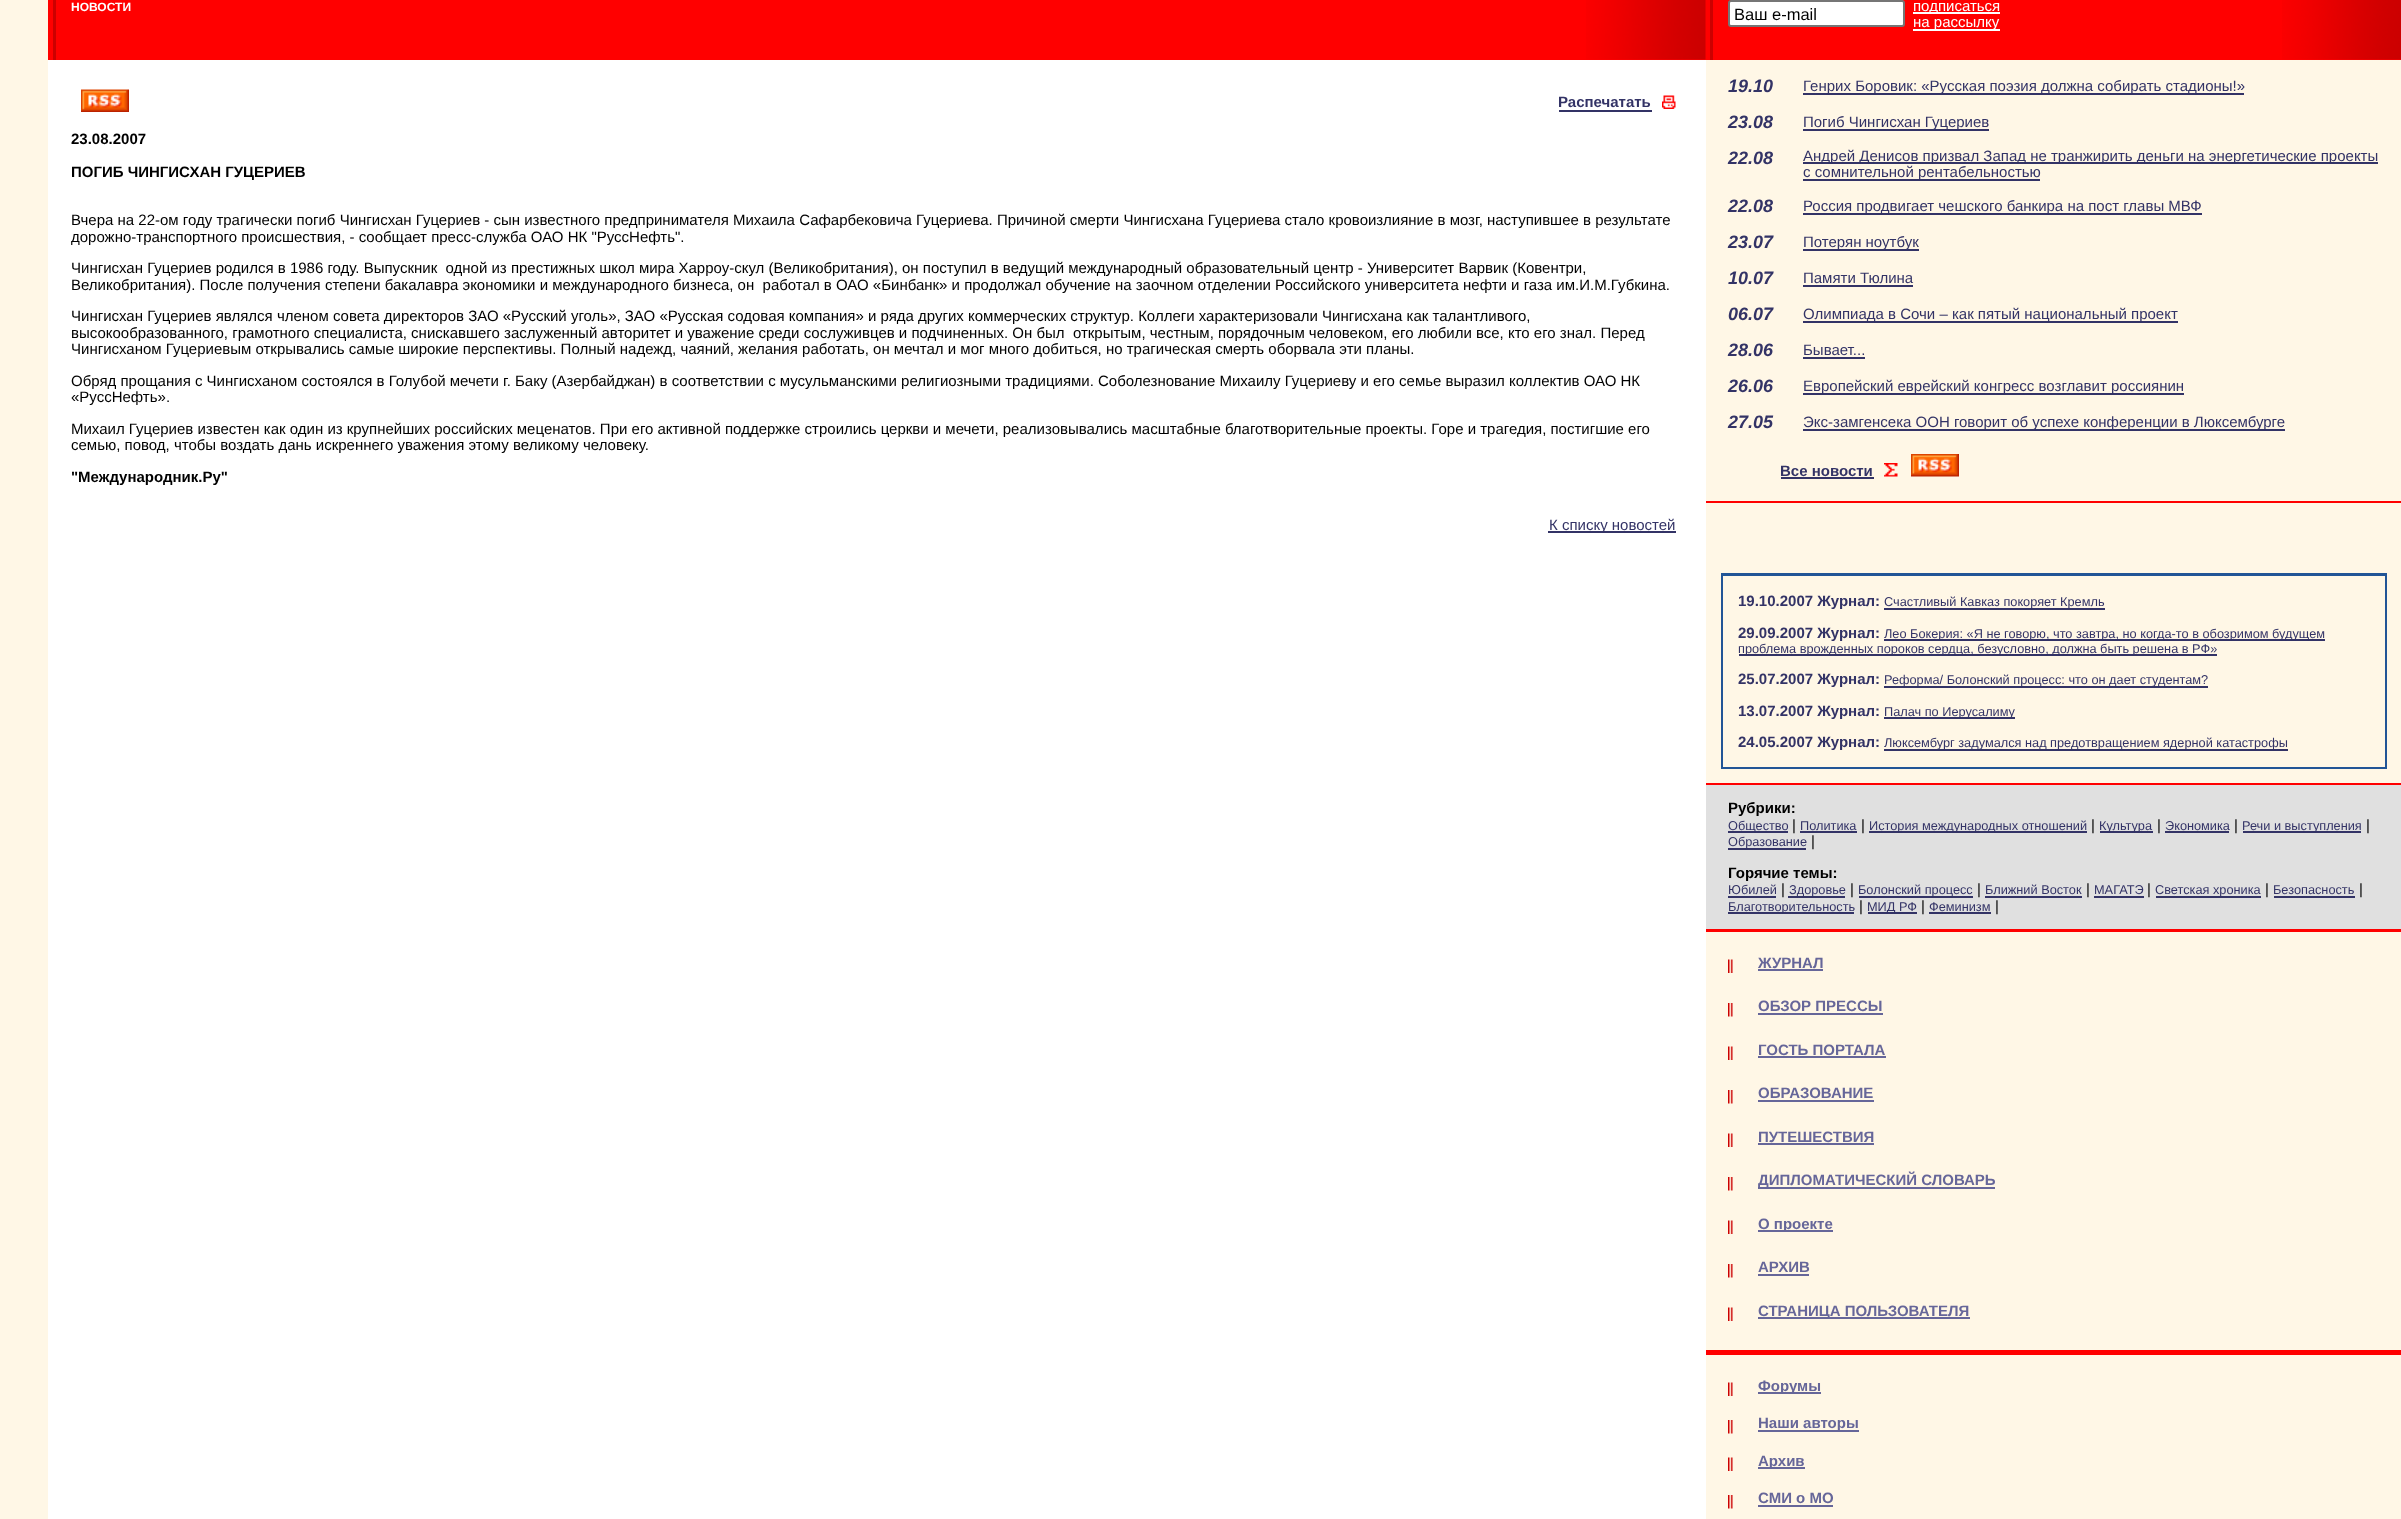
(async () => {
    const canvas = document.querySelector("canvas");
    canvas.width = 2401;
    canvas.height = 1519;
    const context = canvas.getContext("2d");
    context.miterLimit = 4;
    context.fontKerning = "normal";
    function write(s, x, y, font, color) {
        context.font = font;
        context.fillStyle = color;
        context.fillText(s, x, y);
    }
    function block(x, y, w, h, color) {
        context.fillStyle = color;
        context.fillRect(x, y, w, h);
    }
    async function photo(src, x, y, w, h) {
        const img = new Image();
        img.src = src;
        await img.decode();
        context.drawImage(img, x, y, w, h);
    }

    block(0, 0, 2401, 1519, "rgb(255, 255, 255)");
    block(0, 0, 48, 1519, "rgb(255, 247, 230)");
    block(48, 0, 2353, 60, "rgb(255, 0, 0)");
    await photo("media/1.png", 1586, 0, 120, 60);
    block(53, 0, 3, 60, "rgb(204, 0, 0)");
    write("НОВОСТИ", 71, 11, "bold 12px Liberation Sans", "rgb(255, 255, 255)");
    await photo("media/2.png", 2282, 0, 119, 60);
    block(1710, 0, 3, 60, "rgb(204, 0, 0)");
    context.fillStyle = "rgb(255, 255, 255)";
    context.beginPath();
    context.roundRect(1729, 1, 175, 25, 2);
    context.fill();
    context.strokeStyle = "rgb(118, 118, 118)";
    context.lineWidth = 2;
    context.stroke();
    write("Ваш e-mail", 1734, 20, "16.5px Liberation Sans", "rgb(0, 0, 0)");
    block(1913, 12, 87, 2, "rgb(255, 255, 255)");
    write("подписаться", 1913, 11, "15px Liberation Sans", "rgb(255, 255, 255)");
    block(1913, 29, 87, 2, "rgb(255, 255, 255)");
    write("на рассылку", 1913, 27, "15px Liberation Sans", "rgb(255, 255, 255)");
    await photo("media/3.png", 81, 89, 48, 23);
    write("Распечатать", 1558, 107, "bold 15px Liberation Sans", "rgb(51, 51, 102)");
    block(1559, 110, 93, 2, "rgb(51, 51, 102)");
    await photo("media/4.png", 1662, 95, 14, 14);
    write("23.08.2007", 71, 144, "bold 15px Liberation Sans", "rgb(0, 0, 0)");
    write("ПОГИБ ЧИНГИСХАН ГУЦЕРИЕВ", 71, 177, "bold 15px Liberation Sans", "rgb(0, 0, 0)");
    write("Вчера на 22-ом году трагически погиб Чингисхан Гуцериев - сын известного предпринимателя Михаила Сафарбековича Гуцериева. Причиной смерти Чингисхана Гуцериева стало кровоизлияние в мозг, наступившее в результате", 71, 225, "15px Liberation Sans", "rgb(0, 0, 0)");
    write("дорожно-транспортного происшествия, - сообщает пресс-служба ОАО НК \"РуссНефть\".", 71, 242, "15px Liberation Sans", "rgb(0, 0, 0)");
    write("Чингисхан Гуцериев родился в 1986 году. Выпускник  одной из престижных школ мира Харроу-скул (Великобритания), он поступил в ведущий международный образовательный центр - Университет Варвик (Ковентри,", 71, 273, "15px Liberation Sans", "rgb(0, 0, 0)");
    write("Великобритания). После получения степени бакалавра экономики и международного бизнеса, он  работал в ОАО «Бинбанк» и продолжал обучение на заочном отделении Российского университета нефти и газа им.И.М.Губкина.", 71, 290, "15px Liberation Sans", "rgb(0, 0, 0)");
    write("Чингисхан Гуцериев являлся членом совета директоров ЗАО «Русский уголь», ЗАО «Русская содовая компания» и ряда других коммерческих структур. Коллеги характеризовали Чингисхана как талантливого,", 71, 321, "15px Liberation Sans", "rgb(0, 0, 0)");
    write("высокообразованного, грамотного специалиста, снискавшего заслуженный авторитет и уважение среди сослуживцев и подчиненных. Он был  открытым, честным, порядочным человеком, его любили все, кто его знал. Перед", 71, 338, "15px Liberation Sans", "rgb(0, 0, 0)");
    write("Чингисханом Гуцериевым открывались самые широкие перспективы. Полный надежд, чаяний, желания работать, он мечтал и мог много добиться, но трагическая смерть оборвала эти планы.", 71, 354, "15px Liberation Sans", "rgb(0, 0, 0)");
    write("Обряд прощания с Чингисханом состоялся в Голубой мечети г. Баку (Азербайджан) в соответствии с мусульманскими религиозными традициями. Соболезнование Михаилу Гуцериеву и его семье выразил коллектив ОАО НК", 71, 386, "15px Liberation Sans", "rgb(0, 0, 0)");
    write("«РуссНефть».", 71, 402, "15px Liberation Sans", "rgb(0, 0, 0)");
    write("Михаил Гуцериев известен как один из крупнейших российских меценатов. При его активной поддержке строились церкви и мечети, реализовывались масштабные благотворительные проекты. Горе и трагедия, постигшие его", 71, 434, "15px Liberation Sans", "rgb(0, 0, 0)");
    write("семью, повод, чтобы воздать дань искреннего уважения этому великому человеку.", 71, 450, "15px Liberation Sans", "rgb(0, 0, 0)");
    write("\"Международник.Ру\"", 71, 482, "bold 15px Liberation Sans", "rgb(0, 0, 0)");
    block(1548, 531, 128, 2, "rgb(51, 51, 102)");
    write("К списку новостей", 1549, 530, "15px Liberation Sans", "rgb(51, 51, 102)");
    block(1706, 785, 695, 144, "rgb(224, 224, 224)");
    block(1706, 60, 695, 441, "rgb(255, 247, 230)");
    write("19.10", 1728, 92, "italic bold 18px Liberation Sans", "rgb(51, 51, 102)");
    block(1803, 93, 441, 2, "rgb(51, 51, 102)");
    write("Генрих Боровик: «Русская поэзия должна собирать стадионы!»", 1803, 91, "15px Liberation Sans", "rgb(51, 51, 102)");
    write("23.08", 1728, 128, "italic bold 18px Liberation Sans", "rgb(51, 51, 102)");
    block(1803, 129, 186, 2, "rgb(51, 51, 102)");
    write("Погиб Чингисхан Гуцериев", 1803, 127, "15px Liberation Sans", "rgb(51, 51, 102)");
    write("22.08", 1728, 164, "italic bold 18px Liberation Sans", "rgb(51, 51, 102)");
    block(1803, 162, 575, 2, "rgb(51, 51, 102)");
    write("Андрей Денисов призвал Запад не транжирить деньги на энергетические проекты", 1803, 161, "15px Liberation Sans", "rgb(51, 51, 102)");
    block(1803, 179, 237, 2, "rgb(51, 51, 102)");
    write("с сомнительной рентабельностью", 1803, 177, "15px Liberation Sans", "rgb(51, 51, 102)");
    write("22.08", 1728, 212, "italic bold 18px Liberation Sans", "rgb(51, 51, 102)");
    block(1803, 213, 399, 2, "rgb(51, 51, 102)");
    write("Россия продвигает чешского банкира на пост главы МВФ", 1803, 211, "15px Liberation Sans", "rgb(51, 51, 102)");
    write("23.07", 1728, 248, "italic bold 18px Liberation Sans", "rgb(51, 51, 102)");
    block(1803, 249, 116, 2, "rgb(51, 51, 102)");
    write("Потерян ноутбук", 1803, 247, "15px Liberation Sans", "rgb(51, 51, 102)");
    write("10.07", 1728, 284, "italic bold 18px Liberation Sans", "rgb(51, 51, 102)");
    write("Памяти Тюлина", 1803, 283, "15px Liberation Sans", "rgb(51, 51, 102)");
    block(1803, 285, 110, 2, "rgb(51, 51, 102)");
    write("06.07", 1728, 320, "italic bold 18px Liberation Sans", "rgb(51, 51, 102)");
    block(1803, 321, 375, 2, "rgb(51, 51, 102)");
    write("Олимпиада в Сочи – как пятый национальный проект", 1803, 319, "15px Liberation Sans", "rgb(51, 51, 102)");
    write("28.06", 1728, 356, "italic bold 18px Liberation Sans", "rgb(51, 51, 102)");
    write("Бывает...", 1803, 355, "15px Liberation Sans", "rgb(51, 51, 102)");
    block(1803, 357, 62, 2, "rgb(51, 51, 102)");
    write("26.06", 1728, 392, "italic bold 18px Liberation Sans", "rgb(51, 51, 102)");
    block(1803, 393, 381, 2, "rgb(51, 51, 102)");
    write("Европейский еврейский конгресс возглавит россиянин", 1803, 391, "15px Liberation Sans", "rgb(51, 51, 102)");
    write("27.05", 1728, 428, "italic bold 18px Liberation Sans", "rgb(51, 51, 102)");
    block(1803, 429, 482, 2, "rgb(51, 51, 102)");
    write("Экс-замгенсека ООН говорит об успехе конференции в Люксембурге", 1803, 427, "15px Liberation Sans", "rgb(51, 51, 102)");
    write("Все новости", 1780, 476, "bold 15px Liberation Sans", "rgb(51, 51, 102)");
    block(1781, 477, 93, 2, "rgb(51, 51, 102)");
    await photo("media/5.png", 1884, 463, 14, 14);
    await photo("media/6.png", 1911, 454, 48, 23);
    block(1706, 503, 695, 280, "rgb(255, 247, 230)");
    block(1706, 501, 695, 2, "rgb(255, 0, 0)");
    block(1721, 573, 666, 3, "rgb(34, 85, 150)");
    block(2385, 573, 2, 195, "rgb(34, 85, 150)");
    block(1721, 767, 666, 2, "rgb(34, 85, 150)");
    block(1721, 573, 2, 195, "rgb(34, 85, 150)");
    write("19.10.2007 Журнал:", 1738, 606, "bold 15px Liberation Sans", "rgb(51, 51, 102)");
    block(1884, 608, 221, 2, "rgb(51, 51, 102)");
    write("Счастливый Кавказ покоряет Кремль", 1884, 606, "12.75px Liberation Sans", "rgb(51, 51, 102)");
    write("29.09.2007 Журнал:", 1738, 638, "bold 15px Liberation Sans", "rgb(51, 51, 102)");
    block(1884, 639, 441, 2, "rgb(51, 51, 102)");
    write("Лео Бокерия: «Я не говорю, что завтра, но когда-то в обозримом будущем", 1884, 638, "12.75px Liberation Sans", "rgb(51, 51, 102)");
    block(1739, 654, 478, 2, "rgb(51, 51, 102)");
    write("проблема врожденных пороков сердца, безусловно, должна быть решена в РФ»", 1738, 653, "12.75px Liberation Sans", "rgb(51, 51, 102)");
    write("25.07.2007 Журнал:", 1738, 684, "bold 15px Liberation Sans", "rgb(51, 51, 102)");
    block(1884, 686, 324, 2, "rgb(51, 51, 102)");
    write("Реформа/ Болонский процесс: что он дает студентам?", 1884, 684, "12.75px Liberation Sans", "rgb(51, 51, 102)");
    write("13.07.2007 Журнал:", 1738, 716, "bold 15px Liberation Sans", "rgb(51, 51, 102)");
    block(1884, 717, 131, 2, "rgb(51, 51, 102)");
    write("Палач по Иерусалиму", 1884, 716, "12.75px Liberation Sans", "rgb(51, 51, 102)");
    write("24.05.2007 Журнал:", 1738, 747, "bold 15px Liberation Sans", "rgb(51, 51, 102)");
    block(1884, 749, 404, 2, "rgb(51, 51, 102)");
    write("Люксембург задумался над предотвращением ядерной катастрофы", 1884, 747, "12.75px Liberation Sans", "rgb(51, 51, 102)");
    block(1706, 783, 695, 2, "rgb(255, 0, 0)");
    write("Рубрики:", 1728, 813, "bold 15px Liberation Sans", "rgb(0, 0, 0)");
    block(1728, 831, 60, 2, "rgb(51, 51, 102)");
    write("Общество", 1728, 830, "12.75px Liberation Sans", "rgb(51, 51, 102)");
    write("|", 1792, 830, "15px Liberation Sans", "rgb(0, 0, 0)");
    write("Политика", 1800, 830, "12.75px Liberation Sans", "rgb(51, 51, 102)");
    block(1800, 831, 57, 2, "rgb(51, 51, 102)");
    write("|", 1861, 830, "15px Liberation Sans", "rgb(0, 0, 0)");
    block(1869, 831, 218, 2, "rgb(51, 51, 102)");
    write("История международных отношений", 1869, 830, "12.75px Liberation Sans", "rgb(51, 51, 102)");
    write("|", 2091, 830, "15px Liberation Sans", "rgb(0, 0, 0)");
    block(2100, 831, 53, 2, "rgb(51, 51, 102)");
    write("Культура", 2099, 830, "12.75px Liberation Sans", "rgb(51, 51, 102)");
    write("|", 2157, 830, "15px Liberation Sans", "rgb(0, 0, 0)");
    write("Экономика", 2165, 830, "12.75px Liberation Sans", "rgb(51, 51, 102)");
    block(2165, 831, 64, 2, "rgb(51, 51, 102)");
    write("|", 2234, 830, "15px Liberation Sans", "rgb(0, 0, 0)");
    block(2243, 831, 118, 2, "rgb(51, 51, 102)");
    write("Речи и выступления", 2242, 830, "12.75px Liberation Sans", "rgb(51, 51, 102)");
    write("|", 2366, 830, "15px Liberation Sans", "rgb(0, 0, 0)");
    block(1728, 848, 78, 2, "rgb(51, 51, 102)");
    write("Образование", 1728, 846, "12.75px Liberation Sans", "rgb(51, 51, 102)");
    write("|", 1811, 846, "15px Liberation Sans", "rgb(0, 0, 0)");
    write("Горячие темы:", 1728, 878, "bold 15px Liberation Sans", "rgb(0, 0, 0)");
    write("Юбилей", 1728, 894, "12.75px Liberation Sans", "rgb(51, 51, 102)");
    block(1728, 896, 48, 2, "rgb(51, 51, 102)");
    write("|", 1781, 894, "15px Liberation Sans", "rgb(0, 0, 0)");
    block(1788, 896, 57, 2, "rgb(51, 51, 102)");
    write("Здоровье", 1789, 894, "12.75px Liberation Sans", "rgb(51, 51, 102)");
    write("|", 1850, 894, "15px Liberation Sans", "rgb(0, 0, 0)");
    block(1859, 896, 114, 2, "rgb(51, 51, 102)");
    write("Болонский процесс", 1858, 894, "12.75px Liberation Sans", "rgb(51, 51, 102)");
    write("|", 1977, 894, "15px Liberation Sans", "rgb(0, 0, 0)");
    write("Ближний Восток", 1985, 894, "12.75px Liberation Sans", "rgb(51, 51, 102)");
    block(1985, 896, 97, 2, "rgb(51, 51, 102)");
    write("|", 2086, 894, "15px Liberation Sans", "rgb(0, 0, 0)");
    write("МАГАТЭ", 2094, 894, "12.75px Liberation Sans", "rgb(51, 51, 102)");
    block(2094, 896, 50, 2, "rgb(51, 51, 102)");
    write("|", 2147, 894, "15px Liberation Sans", "rgb(0, 0, 0)");
    block(2156, 896, 105, 2, "rgb(51, 51, 102)");
    write("Светская хроника", 2155, 894, "12.75px Liberation Sans", "rgb(51, 51, 102)");
    write("|", 2265, 894, "15px Liberation Sans", "rgb(0, 0, 0)");
    write("Безопасность", 2273, 894, "12.75px Liberation Sans", "rgb(51, 51, 102)");
    block(2274, 896, 81, 2, "rgb(51, 51, 102)");
    write("|", 2359, 894, "15px Liberation Sans", "rgb(0, 0, 0)");
    block(1728, 912, 126, 2, "rgb(51, 51, 102)");
    write("Благотворительность", 1728, 911, "12.75px Liberation Sans", "rgb(51, 51, 102)");
    write("|", 1859, 911, "15px Liberation Sans", "rgb(0, 0, 0)");
    block(1868, 912, 49, 2, "rgb(51, 51, 102)");
    write("МИД РФ", 1867, 911, "12.75px Liberation Sans", "rgb(51, 51, 102)");
    write("|", 1921, 911, "15px Liberation Sans", "rgb(0, 0, 0)");
    write("Феминизм", 1929, 911, "12.75px Liberation Sans", "rgb(51, 51, 102)");
    block(1929, 912, 62, 2, "rgb(51, 51, 102)");
    write("|", 1995, 911, "15px Liberation Sans", "rgb(0, 0, 0)");
    block(1706, 929, 695, 3, "rgb(255, 0, 0)");
    block(1706, 932, 695, 418, "rgb(255, 247, 230)");
    block(1706, 1350, 695, 5, "rgb(255, 0, 0)");
    await photo("media/7.png", 1728, 959, 5, 14);
    write("ЖУРНАЛ", 1758, 968, "bold 15px Liberation Sans", "rgb(102, 102, 153)");
    block(1758, 969, 65, 2, "rgb(102, 102, 153)");
    await photo("media/8.png", 1728, 1003, 5, 14);
    write("ОБЗОР ПРЕССЫ", 1758, 1011, "bold 15px Liberation Sans", "rgb(102, 102, 153)");
    block(1758, 1013, 125, 2, "rgb(102, 102, 153)");
    await photo("media/7.png", 1728, 1046, 5, 14);
    write("ГОСТЬ ПОРТАЛА", 1758, 1055, "bold 15px Liberation Sans", "rgb(102, 102, 153)");
    block(1758, 1056, 128, 2, "rgb(102, 102, 153)");
    await photo("media/8.png", 1728, 1090, 5, 14);
    write("ОБРАЗОВАНИЕ", 1758, 1098, "bold 15px Liberation Sans", "rgb(102, 102, 153)");
    block(1758, 1100, 116, 2, "rgb(102, 102, 153)");
    await photo("media/7.png", 1728, 1133, 5, 14);
    write("ПУТЕШЕСТВИЯ", 1758, 1142, "bold 15px Liberation Sans", "rgb(102, 102, 153)");
    block(1758, 1143, 116, 2, "rgb(102, 102, 153)");
    await photo("media/8.png", 1728, 1177, 5, 14);
    block(1758, 1187, 237, 2, "rgb(102, 102, 153)");
    write("ДИПЛОМАТИЧЕСКИЙ СЛОВАРЬ", 1758, 1185, "bold 15px Liberation Sans", "rgb(102, 102, 153)");
    await photo("media/7.png", 1728, 1220, 5, 14);
    block(1758, 1230, 75, 2, "rgb(102, 102, 153)");
    write("О проекте", 1758, 1229, "bold 15px Liberation Sans", "rgb(102, 102, 153)");
    await photo("media/8.png", 1728, 1264, 5, 14);
    write("АРХИВ", 1758, 1272, "bold 15px Liberation Sans", "rgb(102, 102, 153)");
    block(1758, 1274, 51, 2, "rgb(102, 102, 153)");
    await photo("media/7.png", 1728, 1307, 5, 14);
    block(1758, 1317, 212, 2, "rgb(102, 102, 153)");
    write("СТРАНИЦА ПОЛЬЗОВАТЕЛЯ", 1758, 1316, "bold 15px Liberation Sans", "rgb(102, 102, 153)");
    block(1706, 1355, 695, 164, "rgb(255, 247, 230)");
    await photo("media/7.png", 1728, 1382, 5, 14);
    block(1758, 1392, 63, 2, "rgb(102, 102, 153)");
    write("Форумы", 1758, 1391, "bold 15px Liberation Sans", "rgb(102, 102, 153)");
    await photo("media/8.png", 1728, 1420, 5, 14);
    block(1758, 1430, 101, 2, "rgb(102, 102, 153)");
    write("Наши авторы", 1758, 1428, "bold 15px Liberation Sans", "rgb(102, 102, 153)");
    await photo("media/7.png", 1728, 1457, 5, 14);
    block(1758, 1467, 47, 2, "rgb(102, 102, 153)");
    write("Архив", 1758, 1466, "bold 15px Liberation Sans", "rgb(102, 102, 153)");
    await photo("media/8.png", 1728, 1495, 5, 14);
    write("СМИ о МО", 1758, 1503, "bold 15px Liberation Sans", "rgb(102, 102, 153)");
    block(1758, 1505, 75, 2, "rgb(102, 102, 153)");
})();
